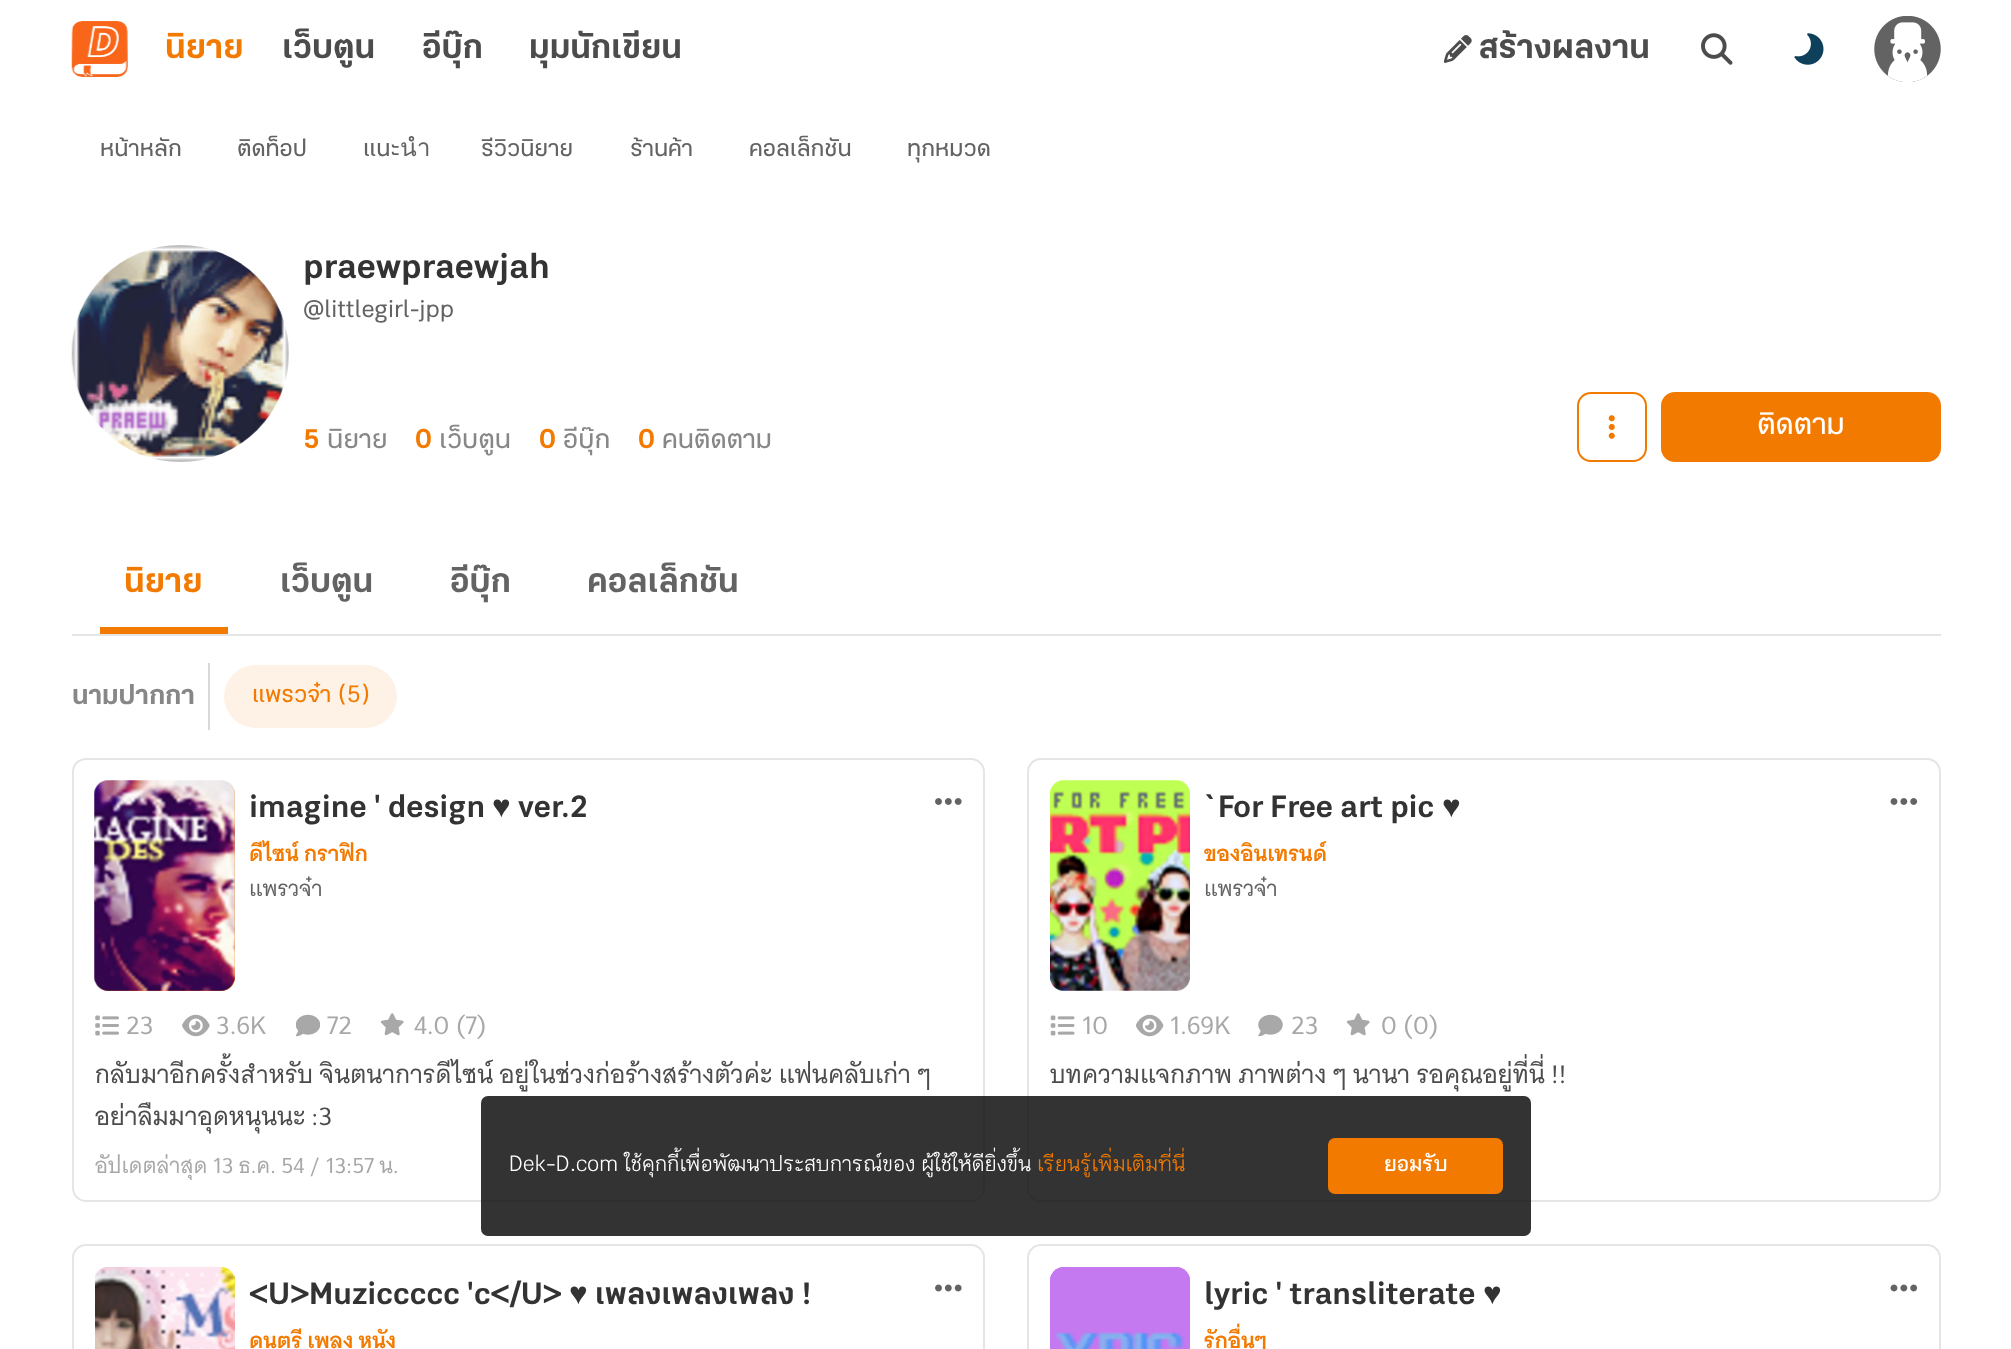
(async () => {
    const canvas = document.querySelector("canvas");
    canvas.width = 2011;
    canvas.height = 1349;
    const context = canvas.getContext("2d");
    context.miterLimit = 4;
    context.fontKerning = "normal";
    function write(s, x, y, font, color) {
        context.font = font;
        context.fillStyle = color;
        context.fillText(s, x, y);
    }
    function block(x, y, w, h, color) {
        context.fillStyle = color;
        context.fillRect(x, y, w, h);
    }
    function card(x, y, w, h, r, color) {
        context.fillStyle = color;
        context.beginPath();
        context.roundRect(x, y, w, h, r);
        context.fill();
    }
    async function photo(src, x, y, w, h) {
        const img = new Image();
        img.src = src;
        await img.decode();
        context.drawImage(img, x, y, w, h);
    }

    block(0, 0, 2011, 1349, "rgb(255, 255, 255)");
    await photo("media/1.png", 71, 21, 57, 56);
    write("นิยาย", 165, 58, "bold 35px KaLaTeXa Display", "rgb(243, 122, 1)");
    write("เว็บตูน", 282, 58, "bold 35px KaLaTeXa Display", "rgb(76, 76, 76)");
    write("อีบุ๊ก", 422, 58, "bold 35px KaLaTeXa Display", "rgb(76, 76, 76)");
    write("มุมนักเขียน", 529, 58, "bold 35px KaLaTeXa Display", "rgb(76, 76, 76)");
    await photo("media/2.png", 1444, 35, 28, 28);
    write("สร้างผลงาน", 1478, 58, "bold 35px KaLaTeXa Display", "rgb(76, 76, 76)");
    await photo("media/3.png", 1701, 33, 32, 32);
    await photo("media/4.png", 1794, 33, 30, 32);
    await photo("media/5.png", 1874, 16, 67, 66);
    write("หน้าหลัก", 100, 156, "24.5px KaLaTeXa Display", "rgb(99, 99, 99)");
    write("ติดท็อป", 237, 156, "24.5px KaLaTeXa Display", "rgb(99, 99, 99)");
    write("แนะนำ", 363, 156, "24.5px KaLaTeXa Display", "rgb(99, 99, 99)");
    write("รีวิวนิยาย", 481, 156, "24.5px KaLaTeXa Display", "rgb(99, 99, 99)");
    write("ร้านค้า", 630, 156, "24.5px KaLaTeXa Display", "rgb(99, 99, 99)");
    write("คอลเล็กชัน", 749, 156, "24.5px KaLaTeXa Display", "rgb(99, 99, 99)");
    write("ทุกหมวด", 907, 156, "24.5px KaLaTeXa Display", "rgb(99, 99, 99)");
    await photo("media/6.png", 71, 245, 218, 217);
    write("praewpraewjah", 303, 278, "bold 35px KaLaTeXa Display", "rgb(51, 51, 51)");
    write("@littlegirl-jpp", 303, 317, "24.5px KaLaTeXa Display", "rgb(99, 99, 99)");
    write("5", 303, 448, "bold 28px KaLaTeXa Display", "rgb(243, 122, 1)");
    write("นิยาย", 327, 448, "28px KaLaTeXa Display", "rgb(135, 135, 135)");
    write("0", 415, 448, "bold 28px KaLaTeXa Display", "rgb(243, 122, 1)");
    write("เว็บตูน", 439, 448, "28px KaLaTeXa Display", "rgb(135, 135, 135)");
    write("0", 539, 448, "bold 28px KaLaTeXa Display", "rgb(243, 122, 1)");
    write("อีบุ๊ก", 563, 448, "28px KaLaTeXa Display", "rgb(135, 135, 135)");
    write("0", 638, 448, "bold 28px KaLaTeXa Display", "rgb(243, 122, 1)");
    write("คนติดตาม", 662, 448, "28px KaLaTeXa Display", "rgb(135, 135, 135)");
    context.beginPath();
    context.roundRect(1578, 393, 68, 68, 13);
    context.strokeStyle = "rgb(243, 122, 1)";
    context.lineWidth = 2;
    context.stroke();
    await photo("media/7.png", 1608, 415, 7, 24);
    context.fillStyle = "rgb(243, 122, 1)";
    context.beginPath();
    context.roundRect(1662, 393, 278, 68, 13);
    context.fill();
    context.stroke();
    write("ติดตาม", 1757, 434, "31.5px KaLaTeXa Display", "rgb(255, 255, 255)");
    block(72, 634, 1869, 2, "rgb(229, 229, 229)");
    block(100, 627, 128, 7, "rgb(243, 122, 1)");
    write("นิยาย", 124, 592, "bold 35px KaLaTeXa Display", "rgb(243, 122, 1)");
    write("เว็บตูน", 280, 592, "bold 35px KaLaTeXa Display", "rgb(99, 99, 99)");
    write("อีบุ๊ก", 450, 592, "bold 35px KaLaTeXa Display", "rgb(99, 99, 99)");
    write("คอลเล็กชัน", 587, 592, "bold 35px KaLaTeXa Display", "rgb(99, 99, 99)");
    write("นามปากกา", 72, 704, "bold 28px KaLaTeXa Display", "rgb(135, 135, 135)");
    block(208, 663, 2, 67, "rgb(217, 217, 217)");
    card(224, 665, 173, 63, 31.5, "rgb(254, 242, 230)");
    write("แพรวจ๋า", 252, 702, "24.5px KaLaTeXa Display", "rgb(243, 122, 1)");
    write("(5)", 338, 702, "24.5px KaLaTeXa Display", "rgb(243, 122, 1)");
    context.beginPath();
    context.roundRect(73, 759, 911, 442, 13);
    context.strokeStyle = "rgb(229, 229, 229)";
    context.stroke();
    card(95, 781, 140, 210, 14, "rgb(243, 122, 1)");
    await photo("media/8.png", 94, 780, 141, 211);
    await photo("media/9.png", 94, 780, 141, 211);
    write("imagine ' design", 249, 817, "bold 31.5px KaLaTeXa Display", "rgb(51, 51, 51)");
    write("♥", 492, 817, "bold 31.5px Liberation Sans", "rgb(51, 51, 51)");
    write("ver.2", 518, 817, "bold 31.5px KaLaTeXa Display", "rgb(51, 51, 51)");
    write("ดีไซน์ กราฟิก", 249, 861, "bold 21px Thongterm", "rgb(243, 122, 1)");
    write("แพรวจ๋า", 249, 896, "21px Thongterm", "rgb(99, 99, 99)");
    await photo("media/10.png", 935, 798, 27, 7);
    await photo("media/11.png", 95, 1015, 24, 21);
    write("23", 126, 1034, "24.5px Thongterm", "rgb(168, 168, 168)");
    await photo("media/12.png", 182, 1014, 28, 23);
    write("3.6K", 216, 1034, "24.5px Thongterm", "rgb(168, 168, 168)");
    await photo("media/13.png", 296, 1014, 24, 23);
    write("72", 327, 1034, "24.5px Thongterm", "rgb(168, 168, 168)");
    await photo("media/14.png", 380, 1013, 24, 23);
    write("4.0 (7)", 414, 1034, "24.5px Thongterm", "rgb(168, 168, 168)");
    write("กลับมาอีกครั้งสำหรับ จินตนาการดีไซน์ อยู่ในช่วงก่อร้างสร้างตัวค่ะ แฟนคลับเก่า ๆ", 95, 1083, "24.5px Thongterm", "rgb(76, 76, 76)");
    write("อย่าลืมมาอุดหนุนนะ :3", 95, 1125, "24.5px Thongterm", "rgb(76, 76, 76)");
    context.save();
    context.beginPath();
    context.rect(95, 1152, 868, 28);
    context.clip();
    write("อัปเดตล่าสุด 13 ธ.ค. 54 / 13:57 น.", 95, 1173, "21px Thongterm", "rgb(168, 168, 168)");
    context.restore();
    context.beginPath();
    context.roundRect(1028, 759, 912, 442, 13);
    context.stroke();
    await photo("media/15.png", 1050, 780, 140, 211);
    await photo("media/16.png", 1050, 780, 140, 211);
    write("`For Free art pic", 1204, 817, "bold 31.5px KaLaTeXa Display", "rgb(51, 51, 51)");
    write("♥", 1442, 817, "bold 31.5px Liberation Sans", "rgb(51, 51, 51)");
    write("ของอินเทรนด์", 1204, 861, "bold 21px Thongterm", "rgb(243, 122, 1)");
    write("แพรวจ๋า", 1204, 896, "21px Thongterm", "rgb(99, 99, 99)");
    await photo("media/17.png", 1890, 798, 28, 7);
    await photo("media/18.png", 1050, 1015, 25, 21);
    write("10", 1082, 1034, "24.5px Thongterm", "rgb(168, 168, 168)");
    await photo("media/19.png", 1136, 1014, 28, 23);
    write("1.69K", 1170, 1034, "24.5px Thongterm", "rgb(168, 168, 168)");
    await photo("media/20.png", 1258, 1014, 25, 23);
    write("23", 1291, 1034, "24.5px Thongterm", "rgb(168, 168, 168)");
    await photo("media/14.png", 1346, 1013, 24, 23);
    write("0 (0)", 1381, 1034, "24.5px Thongterm", "rgb(168, 168, 168)");
    write("บทความแจกภาพ ภาพต่าง ๆ นานา รอคุณอยู่ที่นี่ !!", 1050, 1083, "24.5px Thongterm", "rgb(76, 76, 76)");
    context.beginPath();
    context.roundRect(73, 1245, 911, 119, 13);
    context.stroke();
    await photo("media/21.png", 95, 1267, 140, 82);
    await photo("media/22.png", 95, 1267, 140, 14);
    write("<U>Muziccccc 'c<\/U>", 249, 1304, "bold 31.5px KaLaTeXa Display", "rgb(51, 51, 51)");
    write("♥", 569, 1304, "bold 31.5px Liberation Sans", "rgb(51, 51, 51)");
    write("เพลงเพลงเพลง !", 595, 1304, "bold 31.5px KaLaTeXa Display", "rgb(51, 51, 51)");
    write("ดนตรี เพลง หนัง", 249, 1348, "bold 21px Thongterm", "rgb(243, 122, 1)");
    await photo("media/23.png", 935, 1284, 27, 8);
    context.beginPath();
    context.roundRect(1028, 1245, 912, 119, 13);
    context.stroke();
    await photo("media/24.png", 1050, 1267, 140, 82);
    await photo("media/25.png", 1050, 1267, 140, 14);
    write("lyric ' transliterate", 1204, 1304, "bold 31.5px KaLaTeXa Display", "rgb(51, 51, 51)");
    write("♥", 1483, 1304, "bold 31.5px Liberation Sans", "rgb(51, 51, 51)");
    write("รักอื่นๆ", 1204, 1348, "bold 21px Thongterm", "rgb(243, 122, 1)");
    await photo("media/26.png", 1890, 1284, 28, 8);
    card(481, 1096, 1050, 140, 7, "rgba(15, 15, 15, 0.85)");
    write("Dek-D.com ใช้คุกกี้เพื่อพัฒนาประสบการณ์ของ ผู้ใช้ให้ดียิ่งขึ้น", 509, 1171, "24.5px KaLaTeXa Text", "rgb(255, 255, 255)");
    write("เรียนรู้เพิ่มเติมที่นี่", 1037, 1171, "24.5px KaLaTeXa Text", "rgb(243, 122, 1)");
    card(1328, 1138, 175, 56, 7, "rgb(243, 122, 1)");
    write("ยอมรับ", 1384, 1171, "bold 24.5px KaLaTeXa Text", "rgb(255, 255, 255)");
})();
